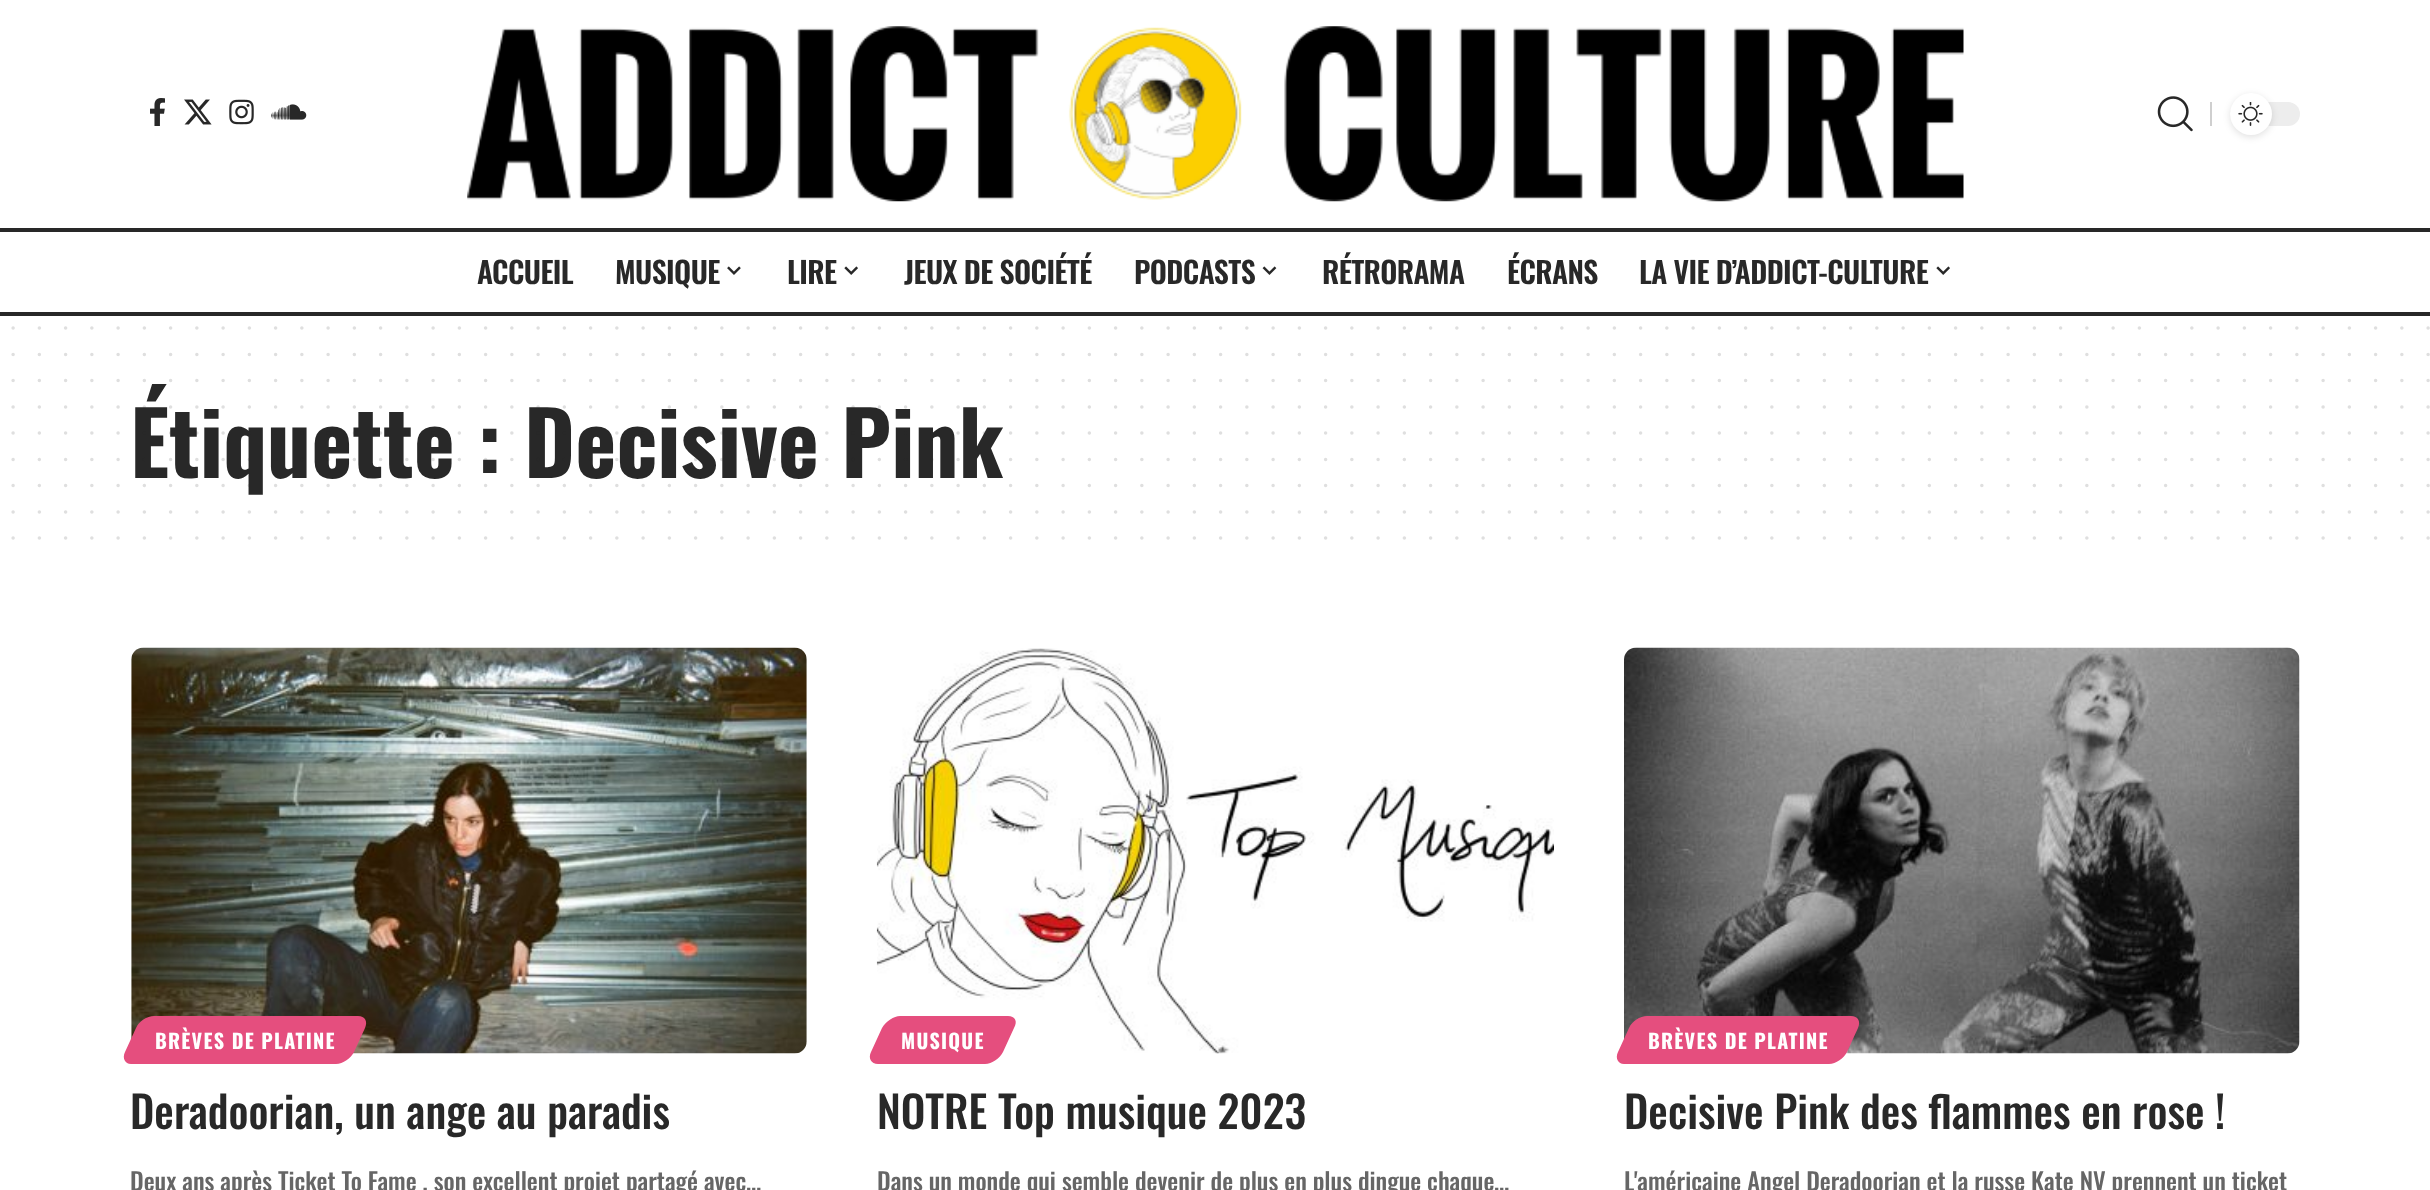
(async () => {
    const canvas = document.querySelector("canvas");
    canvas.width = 2430;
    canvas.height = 1190;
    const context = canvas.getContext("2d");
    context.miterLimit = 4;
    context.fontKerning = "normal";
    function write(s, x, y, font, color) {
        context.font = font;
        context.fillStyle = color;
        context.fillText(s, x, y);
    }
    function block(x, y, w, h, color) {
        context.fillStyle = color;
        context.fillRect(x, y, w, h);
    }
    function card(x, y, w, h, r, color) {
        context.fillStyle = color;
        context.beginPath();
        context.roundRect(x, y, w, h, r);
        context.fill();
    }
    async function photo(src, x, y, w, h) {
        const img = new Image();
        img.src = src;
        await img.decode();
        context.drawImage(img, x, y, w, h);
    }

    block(0, 0, 2430, 1190, "rgb(255, 255, 255)");
    await photo("media/1.png", 150, 98, 15, 28);
    await photo("media/2.png", 184, 99, 28, 26);
    await photo("media/3.png", 229, 99, 25, 26);
    await photo("media/4.png", 271, 104, 36, 16);
    await photo("media/5.png", 467, 26, 1497, 176);
    await photo("media/6.png", 2157, 96, 36, 36);
    block(2210, 102, 2, 24, "rgb(207, 207, 207)");
    card(2230, 102, 70, 24, 12, "rgb(237, 237, 237)");
    context.fillStyle = "rgba(0, 0, 0, 0.12)";
    context.filter = "blur(3.5px)";
    context.beginPath();
    context.roundRect(2230, 95, 42, 42, 21);
    context.fill();
    context.filter = "none";
    context.fillStyle = "rgb(255, 255, 255)";
    context.beginPath();
    context.arc(2251, 114, 21, 0, Math.PI * 2);
    context.fill();
    await photo("media/7.png", 2238, 102, 25, 24);
    block(0, 228, 2430, 4, "rgb(40, 40, 40)");
    context.letterSpacing = "-0.6px";
    write("ACCUEIL", 477, 284, "600 29.75px Oswald", "rgb(40, 40, 40)");
    write("MUSIQUE", 615, 284, "600 29.75px Oswald", "rgb(40, 40, 40)");
    await photo("media/8.png", 727, 266, 14, 9);
    write("LIRE", 787, 284, "600 29.75px Oswald", "rgb(40, 40, 40)");
    await photo("media/9.png", 844, 266, 14, 9);
    write("JEUX DE SOCIÉTÉ", 904, 284, "600 29.75px Oswald", "rgb(40, 40, 40)");
    write("PODCASTS", 1134, 284, "600 29.75px Oswald", "rgb(40, 40, 40)");
    await photo("media/10.png", 1262, 266, 15, 9);
    write("RÉTRORAMA", 1322, 284, "600 29.75px Oswald", "rgb(40, 40, 40)");
    write("ÉCRANS", 1507, 284, "600 29.75px Oswald", "rgb(40, 40, 40)");
    write("LA VIE D’ADDICT-CULTURE", 1639, 284, "600 29.75px Oswald", "rgb(40, 40, 40)");
    await photo("media/9.png", 1936, 266, 14, 9);
    block(0, 312, 2430, 4, "rgb(40, 40, 40)");
    context.beginPath();
    context.moveTo(13.1, 328.1);
    context.lineTo(2428.5, 328.1);
    context.strokeStyle = "rgb(223, 223, 223)";
    context.lineWidth = 3.5;
    context.lineCap = "round";
    context.setLineDash([0, 26.25]);
    context.stroke();
    context.beginPath();
    context.moveTo(13.1, 354.4);
    context.lineTo(2428.5, 354.4);
    context.stroke();
    context.beginPath();
    context.moveTo(13.1, 380.6);
    context.lineTo(2428.5, 380.6);
    context.stroke();
    context.letterSpacing = "0px";
    write("Étiquette : Decisive Pink", 130, 478, "bold 87.5px Oswald", "rgb(40, 40, 40)");
    context.beginPath();
    context.moveTo(13.1, 406.9);
    context.lineTo(2428.5, 406.9);
    context.strokeStyle = "rgba(40, 40, 40, 0.15)";
    context.stroke();
    context.beginPath();
    context.moveTo(13.1, 433.1);
    context.lineTo(2428.5, 433.1);
    context.stroke();
    context.beginPath();
    context.moveTo(13.1, 459.4);
    context.lineTo(2428.5, 459.4);
    context.stroke();
    context.beginPath();
    context.moveTo(13.1, 485.6);
    context.lineTo(2428.5, 485.6);
    context.stroke();
    context.beginPath();
    context.moveTo(13.1, 511.9);
    context.lineTo(2428.5, 511.9);
    context.strokeStyle = "rgb(223, 223, 223)";
    context.stroke();
    context.beginPath();
    context.moveTo(13.1, 538.1);
    context.lineTo(2428.5, 538.1);
    context.stroke();
    await photo("media/11.png", 131, 647, 676, 407);
    context.fillStyle = "rgb(229, 78, 126)";
    context.beginPath();
    context.moveTo(154, 1016);
    context.lineTo(358, 1016);
    context.bezierCurveTo(365, 1016, 368, 1021, 365, 1028);
    context.lineTo(354, 1052);
    context.bezierCurveTo(351, 1058, 343, 1064, 336, 1064);
    context.lineTo(131, 1064);
    context.bezierCurveTo(125, 1064, 122, 1058, 125, 1052);
    context.lineTo(136, 1028);
    context.bezierCurveTo(139, 1021, 147, 1016, 154, 1016);
    context.closePath();
    context.fill();
    context.letterSpacing = "1.25px";
    write("BRÈVES DE PLATINE", 155, 1049, "bold 20.1px Oswald", "rgb(255, 255, 255)");
    context.letterSpacing = "0px";
    write("Deradoorian, un ange au paradis", 130, 1129, "500 43.75px Oswald", "rgb(40, 40, 40)");
    write("Deux ans après Ticket To Fame , son excellent projet partagé avec…", 130, 1191, "500 24.5px Oswald", "rgb(102, 102, 102)");
    await photo("media/12.png", 876, 648, 678, 406);
    context.fillStyle = "rgb(229, 78, 126)";
    context.beginPath();
    context.moveTo(900, 1016);
    context.lineTo(1008, 1016);
    context.bezierCurveTo(1015, 1016, 1018, 1021, 1014, 1028);
    context.lineTo(1003, 1052);
    context.bezierCurveTo(1000, 1058, 992, 1064, 985, 1064);
    context.lineTo(878, 1064);
    context.bezierCurveTo(871, 1064, 868, 1058, 871, 1052);
    context.lineTo(882, 1028);
    context.bezierCurveTo(886, 1021, 894, 1016, 900, 1016);
    context.closePath();
    context.fill();
    context.letterSpacing = "1.25px";
    write("MUSIQUE", 901, 1049, "bold 20.1px Oswald", "rgb(255, 255, 255)");
    context.letterSpacing = "0px";
    write("NOTRE Top musique 2023", 877, 1129, "500 43.75px Oswald", "rgb(40, 40, 40)");
    write("Dans un monde qui semble devenir de plus en plus dingue chaque…", 877, 1191, "500 24.5px Oswald", "rgb(102, 102, 102)");
    await photo("media/13.png", 1624, 647, 676, 407);
    context.fillStyle = "rgb(229, 78, 126)";
    context.beginPath();
    context.moveTo(1647, 1016);
    context.lineTo(1851, 1016);
    context.bezierCurveTo(1858, 1016, 1861, 1021, 1858, 1028);
    context.lineTo(1847, 1052);
    context.bezierCurveTo(1844, 1058, 1836, 1064, 1829, 1064);
    context.lineTo(1624, 1064);
    context.bezierCurveTo(1618, 1064, 1615, 1058, 1618, 1052);
    context.lineTo(1629, 1028);
    context.bezierCurveTo(1632, 1021, 1640, 1016, 1647, 1016);
    context.closePath();
    context.fill();
    context.letterSpacing = "1.25px";
    write("BRÈVES DE PLATINE", 1648, 1049, "bold 20.1px Oswald", "rgb(255, 255, 255)");
    context.letterSpacing = "0px";
    write("Decisive Pink des flammes en rose !", 1624, 1129, "500 43.75px Oswald", "rgb(40, 40, 40)");
    write("L'américaine Angel Deradoorian et la russe Kate NV prennent un ticket", 1624, 1191, "500 24.5px Oswald", "rgb(102, 102, 102)");
})();
